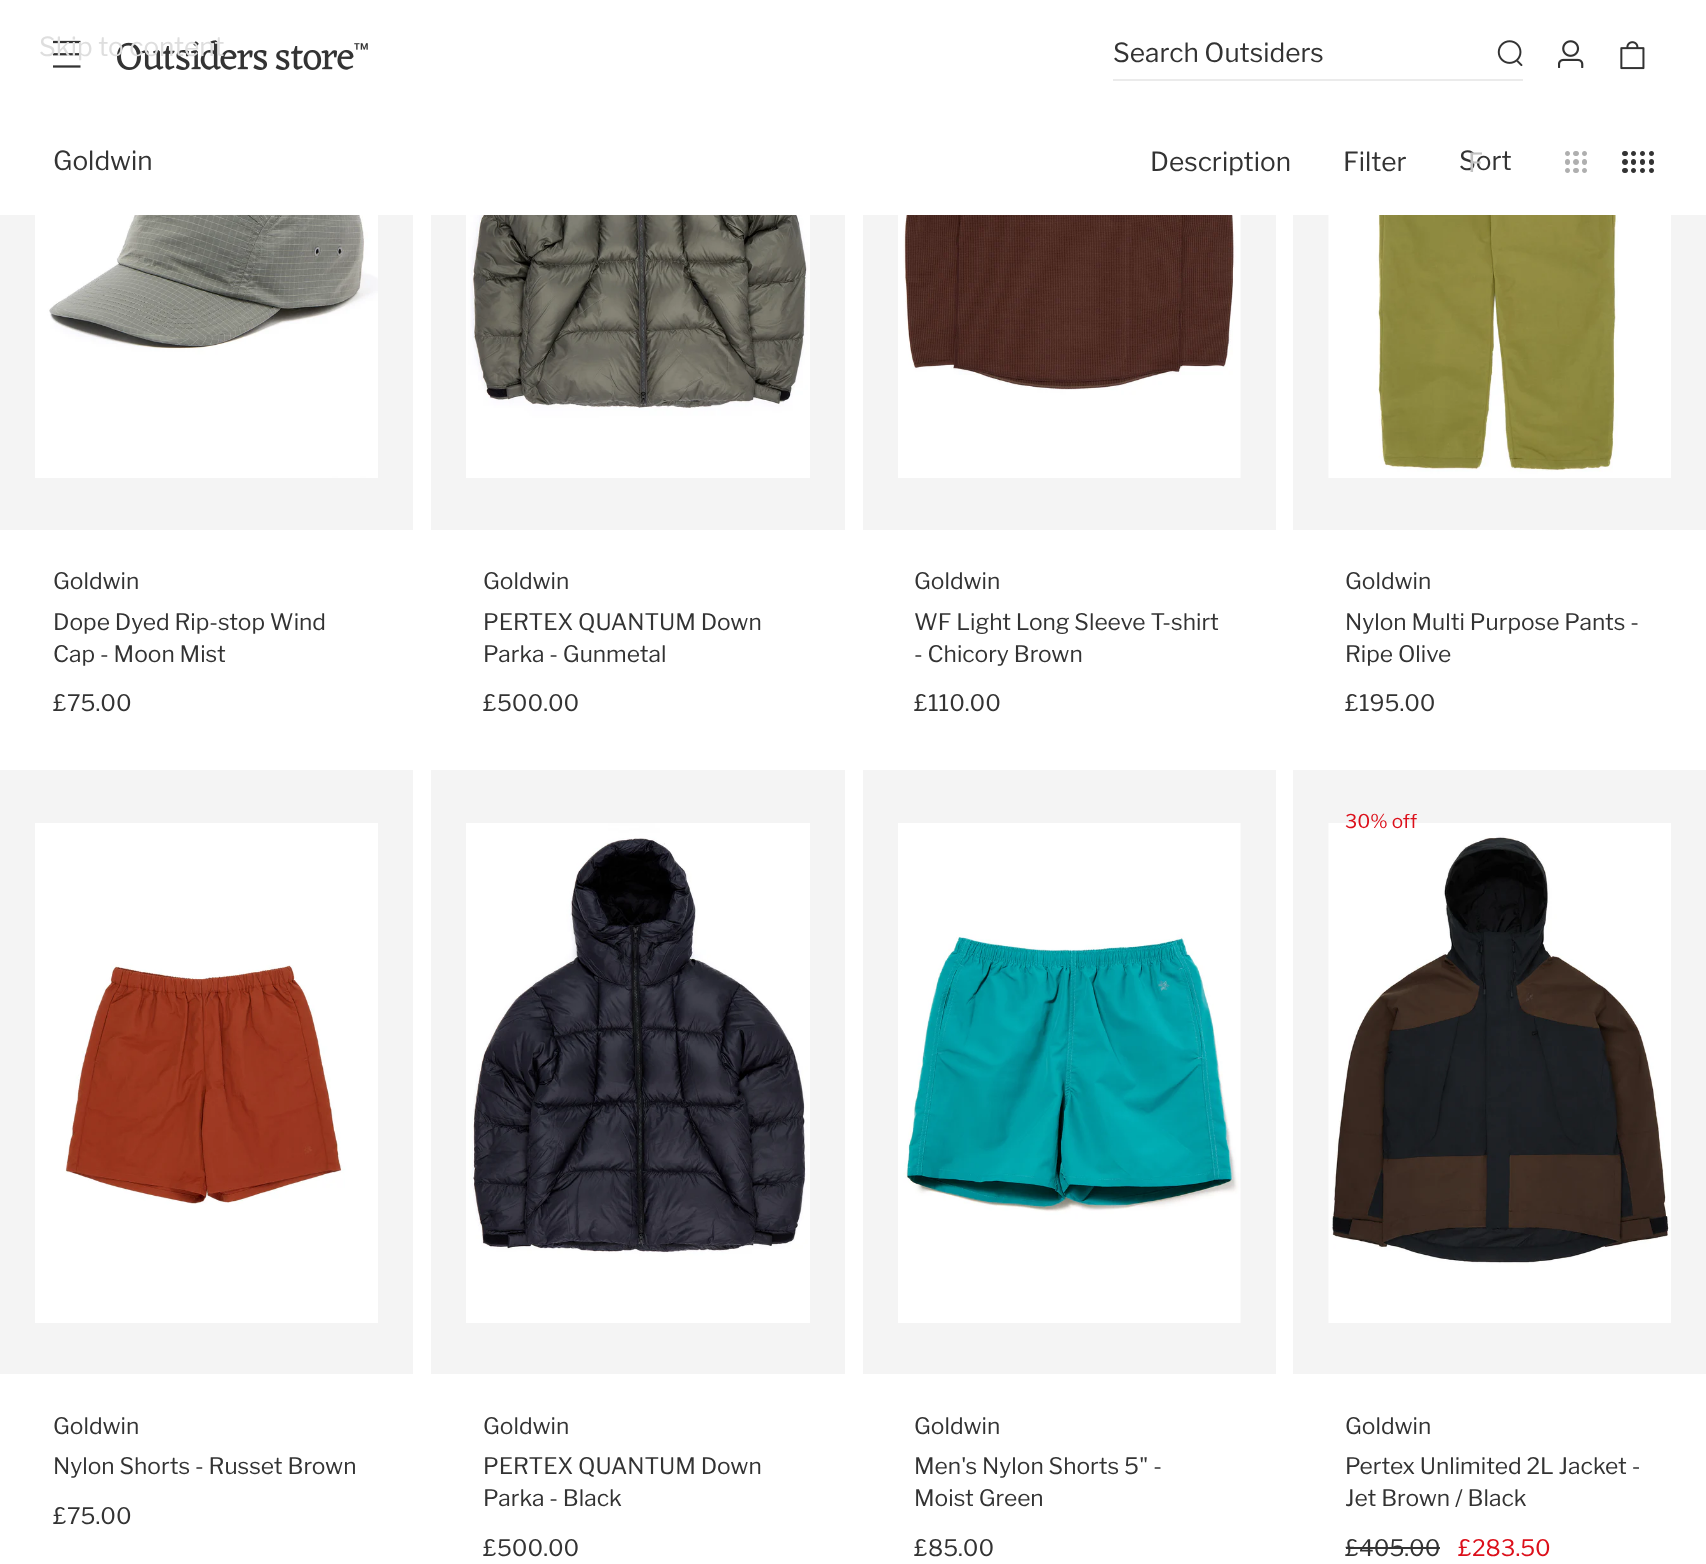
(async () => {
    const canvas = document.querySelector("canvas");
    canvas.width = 1706;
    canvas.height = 1564;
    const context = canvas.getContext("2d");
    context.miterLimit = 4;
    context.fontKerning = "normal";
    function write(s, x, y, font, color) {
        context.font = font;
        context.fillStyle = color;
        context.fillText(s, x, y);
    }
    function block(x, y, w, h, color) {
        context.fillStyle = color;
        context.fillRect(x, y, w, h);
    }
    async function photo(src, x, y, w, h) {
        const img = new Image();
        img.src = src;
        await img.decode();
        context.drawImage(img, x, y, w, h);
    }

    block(0, 0, 1706, 1564, "rgb(255, 255, 255)");
    await photo("media/1.png", 53, 40, 28, 28);
    await photo("media/2.png", 117, 40, 251, 30);
    write("Skip to content", 39, 56, "26.25px Libre Franklin", "rgb(222, 222, 222)");
    block(1113, 79, 410, 2, "rgb(235, 235, 235)");
    write("Search Outsiders", 1113, 62, "26.25px Libre Franklin", "rgb(51, 51, 51)");
    await photo("media/3.png", 1497, 40, 26, 27);
    await photo("media/4.png", 1558, 40, 26, 28);
    await photo("media/5.png", 1620, 41, 25, 29);
    write("Goldwin", 53, 170, "26.25px Libre Franklin", "rgb(51, 51, 51)");
    write("Description", 1150, 171, "26.25px Libre Franklin", "rgb(51, 51, 51)");
    write("Filter", 1343, 171, "26.25px Libre Franklin", "rgb(51, 51, 51)");
    write("Sort", 1459, 170, "26.25px Libre Franklin", "rgb(51, 51, 51)");
    context.save();
    context.beginPath();
    context.rect(1468, 145, 14, 35);
    context.clip();
    write("F", 1468, 172, "26.25px Libre Franklin", "rgb(193, 193, 193)");
    context.restore();
    await photo("media/6.png", 1565, 151, 22, 22);
    await photo("media/7.png", 1622, 151, 32, 22);
    block(0, 215, 413, 315, "rgb(244, 244, 244)");
    await photo("media/8.png", 35, 215, 343, 263);
    write("Goldwin", 53, 589, "22.75px Libre Franklin", "rgb(51, 51, 51)");
    write("Dope Dyed Rip-stop Wind", 53, 630, "22.75px Libre Franklin", "rgb(51, 51, 51)");
    write("Cap - Moon Mist", 53, 662, "22.75px Libre Franklin", "rgb(51, 51, 51)");
    write("£75.00", 53, 711, "22.75px Libre Franklin", "rgb(51, 51, 51)");
    block(431, 215, 414, 315, "rgb(244, 244, 244)");
    await photo("media/9.png", 466, 215, 344, 263);
    write("Goldwin", 483, 589, "22.75px Libre Franklin", "rgb(51, 51, 51)");
    write("PERTEX QUANTUM Down", 483, 630, "22.75px Libre Franklin", "rgb(51, 51, 51)");
    write("Parka - Gunmetal", 483, 662, "22.75px Libre Franklin", "rgb(51, 51, 51)");
    write("£500.00", 483, 711, "22.75px Libre Franklin", "rgb(51, 51, 51)");
    block(863, 215, 413, 315, "rgb(244, 244, 244)");
    await photo("media/10.png", 898, 215, 343, 263);
    write("Goldwin", 914, 589, "22.75px Libre Franklin", "rgb(51, 51, 51)");
    write("WF Light Long Sleeve T-shirt", 914, 630, "22.75px Libre Franklin", "rgb(51, 51, 51)");
    write("- Chicory Brown", 914, 662, "22.75px Libre Franklin", "rgb(51, 51, 51)");
    write("£110.00", 914, 711, "22.75px Libre Franklin", "rgb(51, 51, 51)");
    block(1293, 215, 413, 315, "rgb(244, 244, 244)");
    await photo("media/11.png", 1328, 215, 343, 263);
    write("Goldwin", 1345, 589, "22.75px Libre Franklin", "rgb(51, 51, 51)");
    write("Nylon Multi Purpose Pants -", 1345, 630, "22.75px Libre Franklin", "rgb(51, 51, 51)");
    write("Ripe Olive", 1345, 662, "22.75px Libre Franklin", "rgb(51, 51, 51)");
    write("£195.00", 1345, 711, "22.75px Libre Franklin", "rgb(51, 51, 51)");
    block(0, 770, 413, 604, "rgb(244, 244, 244)");
    await photo("media/12.png", 35, 823, 343, 500);
    write("Goldwin", 53, 1434, "22.75px Libre Franklin", "rgb(51, 51, 51)");
    write("Nylon Shorts - Russet Brown", 53, 1474, "22.75px Libre Franklin", "rgb(51, 51, 51)");
    write("£75.00", 53, 1524, "22.75px Libre Franklin", "rgb(51, 51, 51)");
    block(431, 770, 414, 604, "rgb(244, 244, 244)");
    await photo("media/13.png", 466, 823, 344, 500);
    write("Goldwin", 483, 1434, "22.75px Libre Franklin", "rgb(51, 51, 51)");
    write("PERTEX QUANTUM Down", 483, 1474, "22.75px Libre Franklin", "rgb(51, 51, 51)");
    write("Parka - Black", 483, 1506, "22.75px Libre Franklin", "rgb(51, 51, 51)");
    write("£500.00", 483, 1556, "22.75px Libre Franklin", "rgb(51, 51, 51)");
    block(863, 770, 413, 604, "rgb(244, 244, 244)");
    await photo("media/14.png", 898, 823, 343, 500);
    write("Goldwin", 914, 1434, "22.75px Libre Franklin", "rgb(51, 51, 51)");
    write("Men's Nylon Shorts 5\" -", 914, 1474, "22.75px Libre Franklin", "rgb(51, 51, 51)");
    write("Moist Green", 914, 1506, "22.75px Libre Franklin", "rgb(51, 51, 51)");
    write("£85.00", 914, 1556, "22.75px Libre Franklin", "rgb(51, 51, 51)");
    block(1293, 770, 413, 604, "rgb(244, 244, 244)");
    await photo("media/15.png", 1328, 823, 343, 500);
    write("30% off", 1345, 828, "19px Libre Franklin", "rgb(220, 15, 26)");
    write("Goldwin", 1345, 1434, "22.75px Libre Franklin", "rgb(51, 51, 51)");
    write("Pertex Unlimited 2L Jacket -", 1345, 1474, "22.75px Libre Franklin", "rgb(51, 51, 51)");
    write("Jet Brown / Black", 1345, 1506, "22.75px Libre Franklin", "rgb(51, 51, 51)");
    write("£405.00", 1345, 1556, "22.75px Libre Franklin", "rgb(51, 51, 51)");
    block(1346, 1547, 94, 2, "rgb(51, 51, 51)");
    write("£283.50", 1458, 1556, "22.75px Libre Franklin", "rgb(220, 15, 26)");
})();
